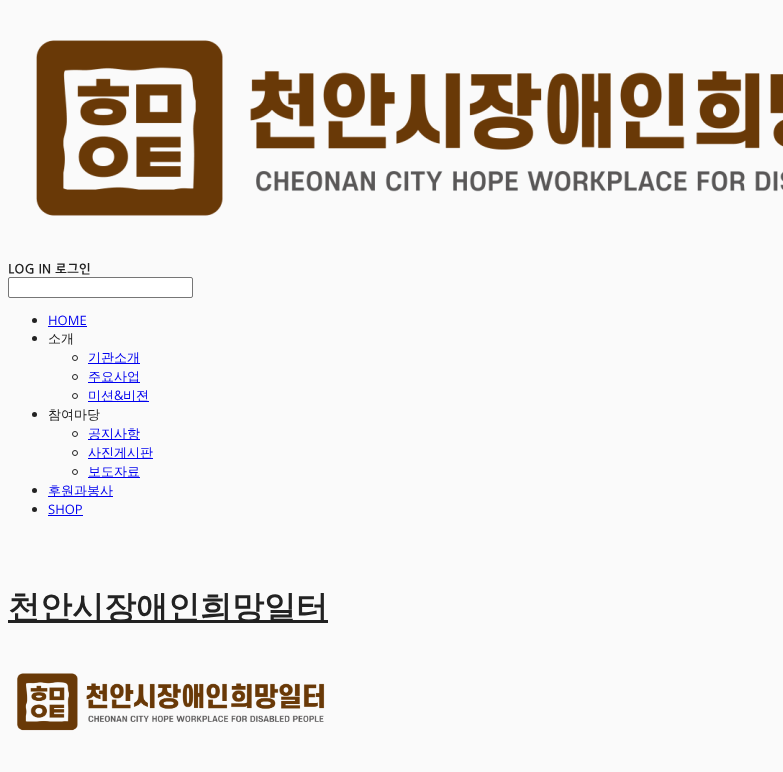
(async () => {
    const canvas = document.querySelector("canvas");
    canvas.width = 783;
    canvas.height = 772;
    const context = canvas.getContext("2d");
    context.miterLimit = 4;
    context.fontKerning = "normal";
    function write(s, x, y, font, color) {
        context.font = font;
        context.fillStyle = color;
        context.fillText(s, x, y);
    }
    function block(x, y, w, h, color) {
        context.fillStyle = color;
        context.fillRect(x, y, w, h);
    }
    async function photo(src, x, y, w, h) {
        const img = new Image();
        img.src = src;
        await img.decode();
        context.drawImage(img, x, y, w, h);
    }

    block(0, 0, 783, 772, "rgb(250, 250, 250)");
    await photo("media/1.png", 36, 40, 747, 176);
    write("LOG IN 로그인", 8, 273, "13px JejuGothic", "rgb(34, 34, 34)");
    context.fillStyle = "rgb(255, 255, 255)";
    context.beginPath();
    context.roundRect(8.5, 277.5, 184, 20, 1.5);
    context.fill();
    context.strokeStyle = "rgb(118, 118, 118)";
    context.stroke();
    context.fillStyle = "rgb(34, 34, 34)";
    context.beginPath();
    context.arc(34.5, 320.5, 2.5, 0, Math.PI * 2);
    context.fill();
    write("HOME", 48, 325, "13px Open Sans", "rgb(0, 0, 238)");
    block(48, 326, 39, 1, "rgb(0, 0, 238)");
    context.fillStyle = "rgb(34, 34, 34)";
    context.beginPath();
    context.arc(34.5, 338.5, 2.5, 0, Math.PI * 2);
    context.fill();
    write("소개", 48, 343, "500 13px WenQuanYi Zen Hei", "rgb(34, 34, 34)");
    context.beginPath();
    context.arc(75, 358, 2.5, 0, Math.PI * 2);
    context.strokeStyle = "rgb(34, 34, 34)";
    context.stroke();
    block(88, 363, 52, 1, "rgb(0, 0, 238)");
    write("기관소개", 88, 362, "500 13px WenQuanYi Zen Hei", "rgb(0, 0, 238)");
    context.beginPath();
    context.arc(75, 377, 2.5, 0, Math.PI * 2);
    context.stroke();
    block(88, 382, 52, 1, "rgb(0, 0, 238)");
    write("주요사업", 88, 381, "500 13px WenQuanYi Zen Hei", "rgb(0, 0, 238)");
    context.beginPath();
    context.arc(75, 396, 2.5, 0, Math.PI * 2);
    context.stroke();
    block(88, 401, 61, 1, "rgb(0, 0, 238)");
    write("미션", 88, 400, "500 13px WenQuanYi Zen Hei", "rgb(0, 0, 238)");
    write("&", 114, 400, "13px Open Sans", "rgb(0, 0, 238)");
    write("비젼", 123, 400, "500 13px WenQuanYi Zen Hei", "rgb(0, 0, 238)");
    context.fillStyle = "rgb(34, 34, 34)";
    context.beginPath();
    context.arc(34.5, 414.5, 2.5, 0, Math.PI * 2);
    context.fill();
    write("참여마당", 48, 419, "500 13px WenQuanYi Zen Hei", "rgb(34, 34, 34)");
    context.beginPath();
    context.arc(75, 434, 2.5, 0, Math.PI * 2);
    context.stroke();
    block(88, 439, 52, 1, "rgb(0, 0, 238)");
    write("공지사항", 88, 438, "500 13px WenQuanYi Zen Hei", "rgb(0, 0, 238)");
    context.beginPath();
    context.arc(75, 453, 2.5, 0, Math.PI * 2);
    context.stroke();
    block(88, 458, 65, 1, "rgb(0, 0, 238)");
    write("사진게시판", 88, 457, "500 13px WenQuanYi Zen Hei", "rgb(0, 0, 238)");
    context.beginPath();
    context.arc(75, 472, 2.5, 0, Math.PI * 2);
    context.stroke();
    block(88, 477, 52, 1, "rgb(0, 0, 238)");
    write("보도자료", 88, 476, "500 13px WenQuanYi Zen Hei", "rgb(0, 0, 238)");
    context.fillStyle = "rgb(34, 34, 34)";
    context.beginPath();
    context.arc(34.5, 490.5, 2.5, 0, Math.PI * 2);
    context.fill();
    block(48, 496, 65, 1, "rgb(0, 0, 238)");
    write("후원과봉사", 48, 495, "500 13px WenQuanYi Zen Hei", "rgb(0, 0, 238)");
    context.fillStyle = "rgb(34, 34, 34)";
    context.beginPath();
    context.arc(34.5, 509.5, 2.5, 0, Math.PI * 2);
    context.fill();
    write("SHOP", 48, 514, "13px Open Sans", "rgb(0, 0, 238)");
    block(48, 515, 35, 1, "rgb(0, 0, 238)");
    block(8, 620, 320, 3, "rgb(34, 34, 34)");
    write("천안시장애인희망일터", 8, 618, "bold 32px WenQuanYi Zen Hei", "rgb(34, 34, 34)");
    await photo("media/2.png", 17, 673, 308, 58);
})();
